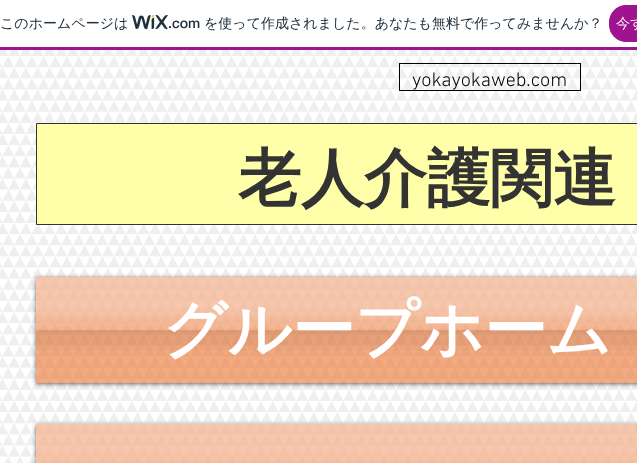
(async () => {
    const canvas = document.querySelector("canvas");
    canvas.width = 637;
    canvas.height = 463;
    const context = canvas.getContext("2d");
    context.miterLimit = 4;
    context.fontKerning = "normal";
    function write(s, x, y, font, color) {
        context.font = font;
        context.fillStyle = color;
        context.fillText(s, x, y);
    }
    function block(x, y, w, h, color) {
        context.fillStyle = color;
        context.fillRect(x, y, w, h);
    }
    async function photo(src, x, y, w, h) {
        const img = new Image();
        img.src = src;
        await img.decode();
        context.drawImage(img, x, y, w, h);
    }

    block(0, 0, 637, 463, "rgb(255, 255, 255)");
    block(0, 47, 637, 3, "rgb(160, 19, 142)");
    write("このホームページは", 0, 28, "500 14px WenQuanYi Zen Hei", "rgb(32, 48, 60)");
    await photo("media/1.png", 132, 15, 36, 15);
    write(".com", 168, 28, "500 14px 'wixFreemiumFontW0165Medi'", "rgb(32, 48, 60)");
    write("を使って作成されました。あなたも無料で作ってみませんか？", 204, 28, "500 14px WenQuanYi Zen Hei", "rgb(32, 48, 60)");
    context.fillStyle = "rgb(160, 19, 142)";
    context.beginPath();
    context.roundRect(609.5, 5.5, 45, 36, 16.5);
    context.fill();
    context.strokeStyle = "rgb(160, 19, 142)";
    context.stroke();
    write("今す", 616, 28, "500 14px WenQuanYi Zen Hei", "rgb(255, 255, 255)");
    await photo("media/2.png", 0, 50, 637, 413);
    context.strokeStyle = "rgb(0, 0, 0)";
    context.strokeRect(399.5, 63.5, 181, 27);
    write("yokayokaweb.com", 412, 86, "300 20px 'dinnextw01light'", "rgb(0, 0, 0)");
    context.fillStyle = "rgb(255, 255, 170)";
    context.beginPath();
    context.rect(36.5, 123.5, 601, 101);
    context.fill();
    context.strokeStyle = "rgb(51, 51, 51)";
    context.stroke();
    write("老人介護関連", 238, 200, "bold 63px WenQuanYi Zen Hei", "rgb(51, 51, 51)");
    context.save();
    context.beginPath();
    context.moveTo(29, 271);
    context.lineTo(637, 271);
    context.lineTo(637, 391);
    context.lineTo(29, 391);
    context.closePath();
    context.moveTo(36, 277);
    context.lineTo(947, 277);
    context.lineTo(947, 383);
    context.lineTo(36, 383);
    context.closePath();
    context.clip("evenodd");
    context.fillStyle = "rgba(0, 0, 0, 0.6)";
    context.filter = "blur(2px)";
    context.beginPath();
    context.rect(36, 278, 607, 106);
    context.fill();
    context.filter = "none";
    context.restore();
    block(36, 277, 601, 106, "rgba(235, 114, 45, 0.6)");
    await photo("media/3.png", 36, 277, 601, 74);
    context.wordSpacing = "-3px";
    write("グループホーム", 163, 351, "bold 63px WenQuanYi Zen Hei", "rgb(255, 255, 255)");
    context.save();
    context.beginPath();
    context.moveTo(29, 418);
    context.lineTo(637, 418);
    context.lineTo(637, 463);
    context.lineTo(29, 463);
    context.closePath();
    context.moveTo(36, 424);
    context.lineTo(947, 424);
    context.lineTo(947, 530);
    context.lineTo(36, 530);
    context.closePath();
    context.clip("evenodd");
    context.fillStyle = "rgba(0, 0, 0, 0.6)";
    context.filter = "blur(2px)";
    context.beginPath();
    context.rect(36, 425, 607, 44);
    context.fill();
    context.filter = "none";
    context.restore();
    block(36, 424, 601, 39, "rgba(235, 114, 45, 0.6)");
    await photo("media/4.png", 36, 424, 601, 39);
})();
